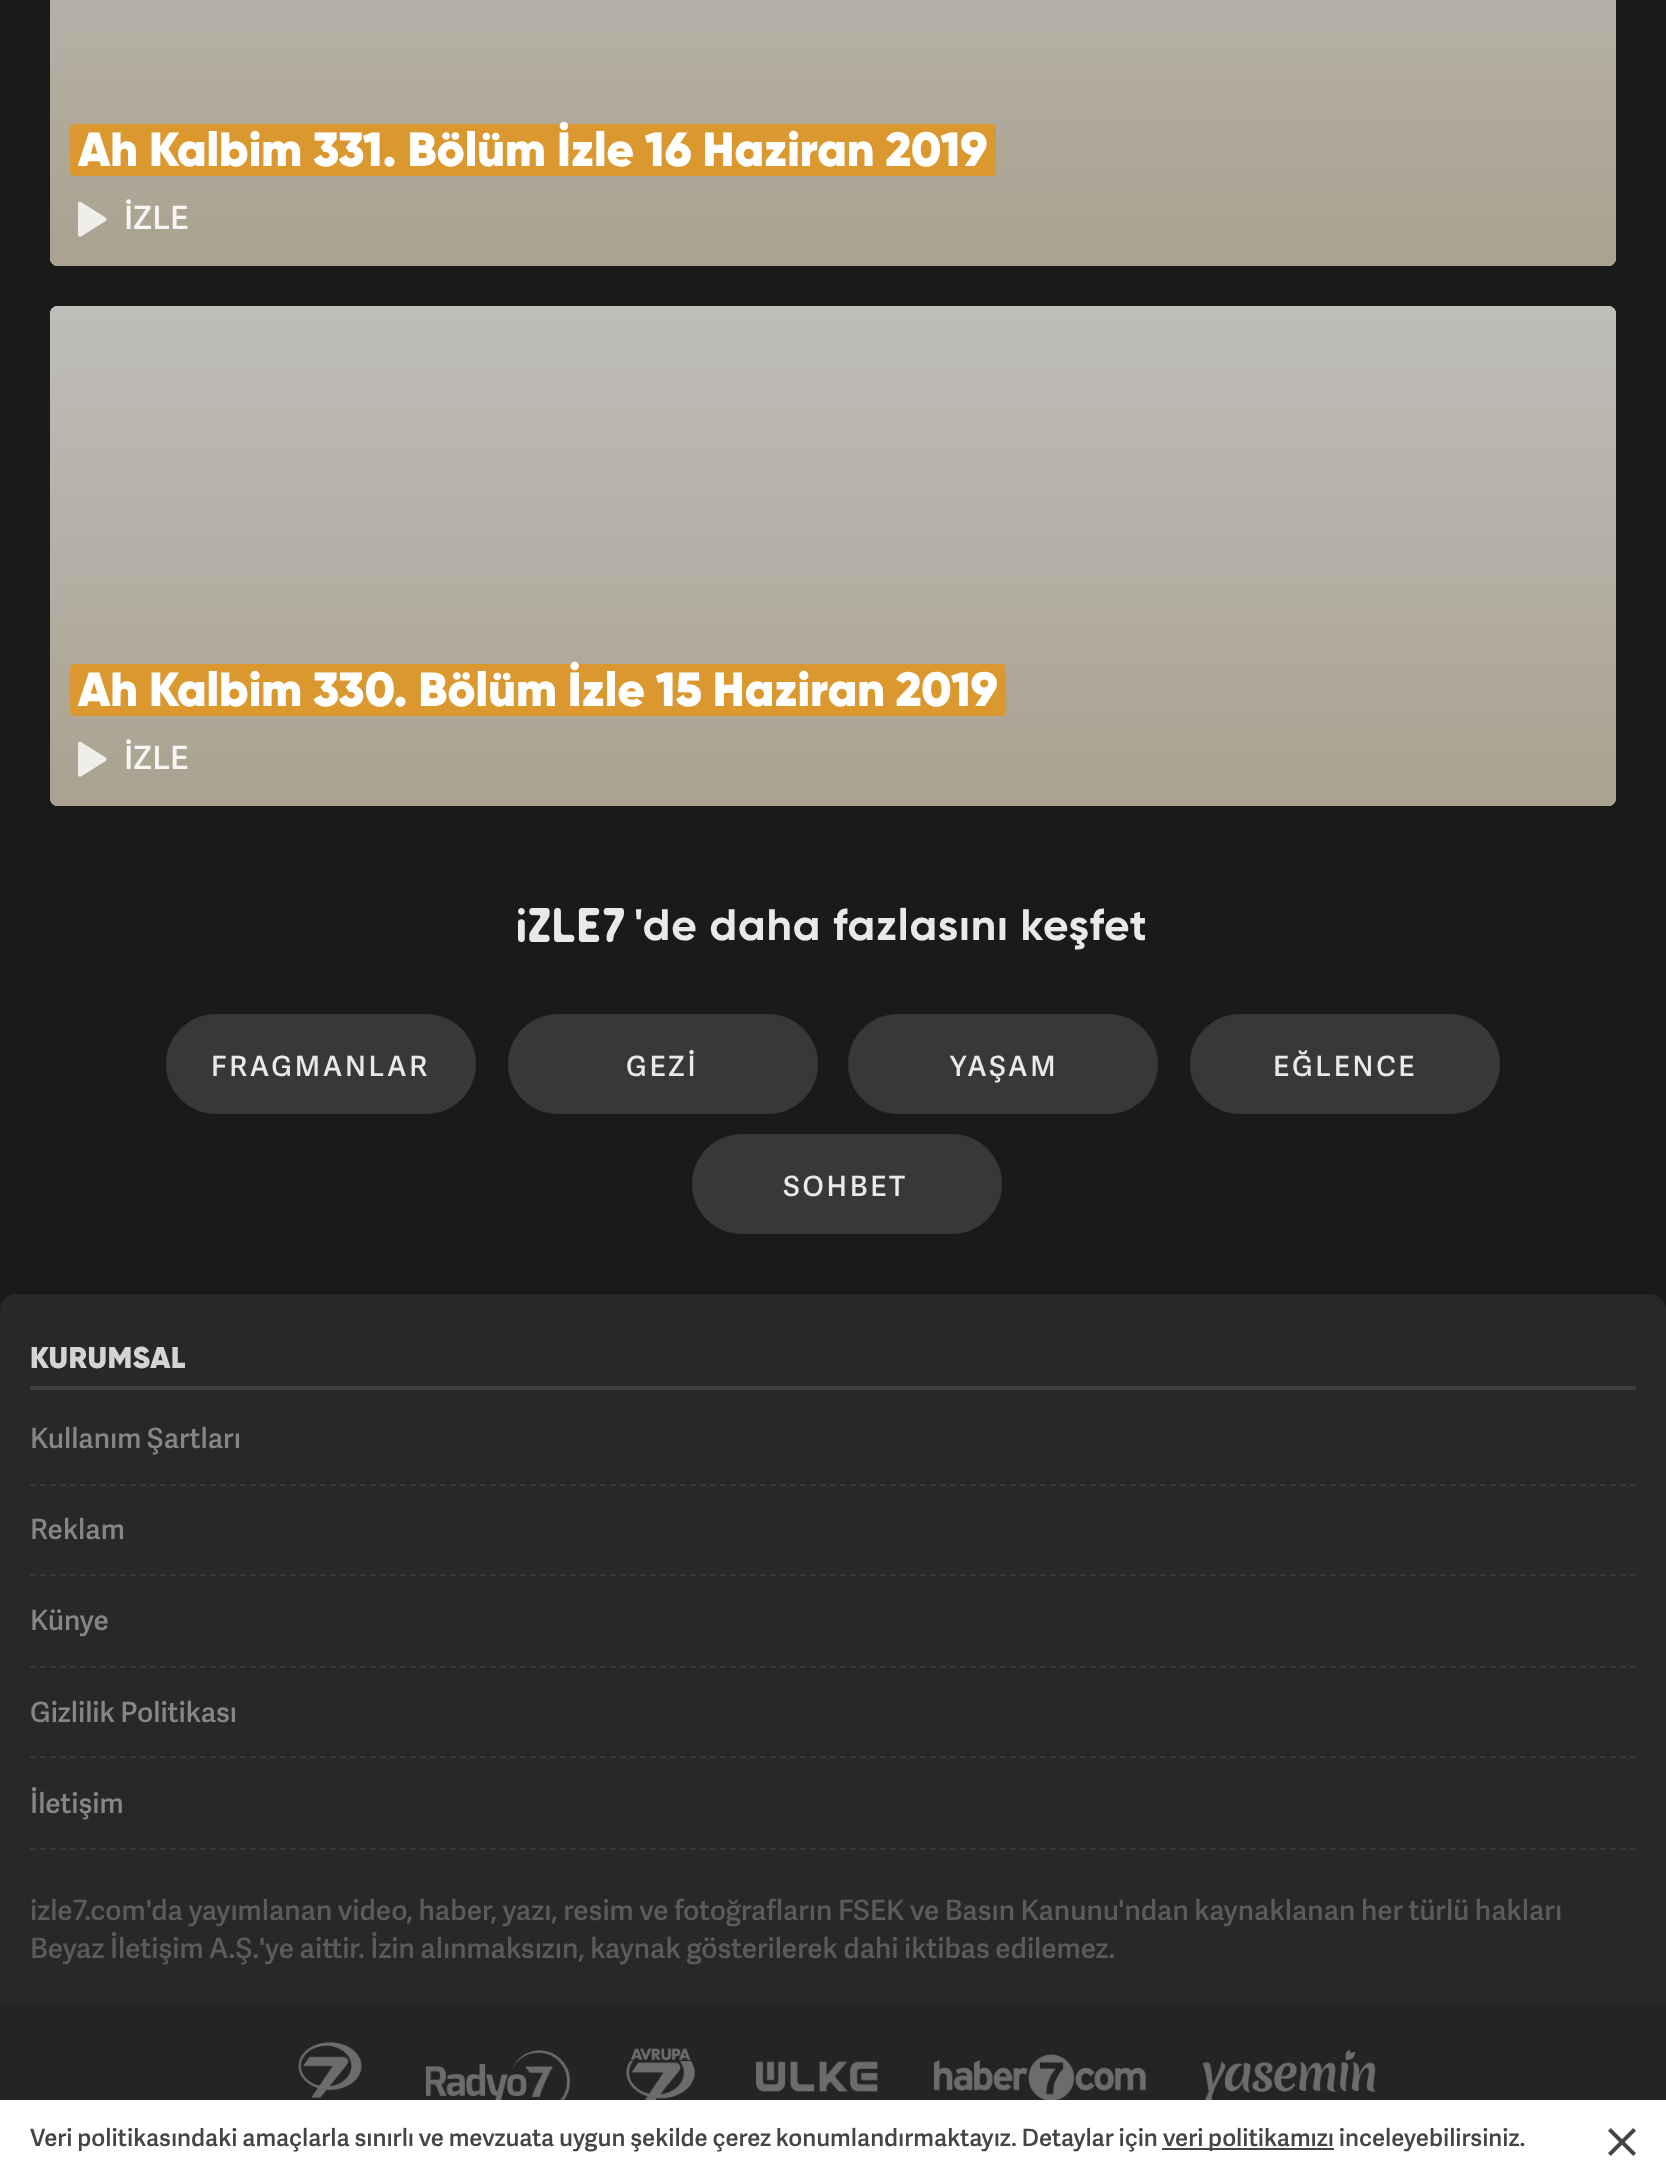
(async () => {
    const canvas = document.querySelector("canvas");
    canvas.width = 1666;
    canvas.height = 2176;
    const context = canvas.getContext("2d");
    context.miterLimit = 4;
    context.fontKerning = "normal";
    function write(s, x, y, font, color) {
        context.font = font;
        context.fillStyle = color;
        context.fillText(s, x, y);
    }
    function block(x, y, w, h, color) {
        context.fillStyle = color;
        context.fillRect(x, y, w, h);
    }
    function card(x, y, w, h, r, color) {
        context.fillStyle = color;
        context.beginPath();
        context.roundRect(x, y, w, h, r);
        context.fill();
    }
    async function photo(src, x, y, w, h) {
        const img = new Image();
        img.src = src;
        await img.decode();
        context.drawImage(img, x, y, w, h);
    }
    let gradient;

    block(0, 0, 1666, 2176, "rgb(26, 26, 26)");
    card(50, -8, 1566, 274, 8, "rgb(255, 255, 255)");
    await photo("media/1.png", 50, 0, 1566, 266);
    gradient = context.createLinearGradient(833, -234, 833, 266);
    gradient.addColorStop(0.01, "rgba(110, 81, 18, 0.05)");
    gradient.addColorStop(0.99, "rgba(110, 81, 18, 0.29)");
    context.fillStyle = gradient;
    context.beginPath();
    context.roundRect(50, -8, 1566, 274, 8);
    context.fill();
    context.fillStyle = "rgb(218, 152, 46)";
    context.beginPath();
    context.moveTo(74, 124);
    context.lineTo(82, 124);
    context.bezierCurveTo(80, 124, 78, 126, 78, 128);
    context.lineTo(78, 172);
    context.bezierCurveTo(78, 174, 80, 176, 82, 176);
    context.lineTo(74, 176);
    context.bezierCurveTo(72, 176, 70, 174, 70, 172);
    context.lineTo(70, 128);
    context.bezierCurveTo(70, 126, 72, 124, 74, 124);
    context.closePath();
    context.fill();
    card(78, 124, 918, 52, 4, "rgb(218, 152, 46)");
    write("Ah Kalbim 331. Bölüm İzle 16 Haziran 2019", 78, 166, "900 48px Gilroy", "rgb(255, 255, 255)");
    await photo("media/2.png", 78, 201, 29, 36);
    write("İZLE", 124, 229, "600 32px 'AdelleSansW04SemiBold'", "rgb(247, 246, 244)");
    card(50, 306, 1566, 500, 8, "rgb(255, 255, 255)");
    await photo("media/3.png", 50, 306, 1566, 500);
    gradient = context.createLinearGradient(833, 306, 833, 806);
    gradient.addColorStop(0.01, "rgba(110, 81, 18, 0.05)");
    gradient.addColorStop(0.99, "rgba(110, 81, 18, 0.29)");
    context.fillStyle = gradient;
    context.beginPath();
    context.roundRect(50, 306, 1566, 500, 8);
    context.fill();
    context.fillStyle = "rgb(218, 152, 46)";
    context.beginPath();
    context.moveTo(74, 664);
    context.lineTo(82, 664);
    context.bezierCurveTo(80, 664, 78, 666, 78, 668);
    context.lineTo(78, 712);
    context.bezierCurveTo(78, 714, 80, 716, 82, 716);
    context.lineTo(74, 716);
    context.bezierCurveTo(72, 716, 70, 714, 70, 712);
    context.lineTo(70, 668);
    context.bezierCurveTo(70, 666, 72, 664, 74, 664);
    context.closePath();
    context.fill();
    card(78, 664, 928, 52, 4, "rgb(218, 152, 46)");
    write("Ah Kalbim 330. Bölüm İzle 15 Haziran 2019", 78, 706, "900 48px Gilroy", "rgb(255, 255, 255)");
    await photo("media/2.png", 78, 741, 29, 36);
    write("İZLE", 124, 769, "600 32px 'AdelleSansW04SemiBold'", "rgb(247, 246, 244)");
    await photo("media/4.png", 518, 908, 106, 34);
    context.letterSpacing = "0.9px";
    write("'de daha fazlasını keşfet", 634, 940, "bold 44px Gilroy", "rgb(233, 233, 233)");
    card(166, 1014, 310, 100, 50, "rgb(56, 56, 56)");
    context.letterSpacing = "2.75px";
    write("FRAGMANLAR", 211, 1076, "600 28px 'AdelleSansW04SemiBold'", "rgb(233, 233, 233)");
    card(508, 1014, 310, 100, 50, "rgb(56, 56, 56)");
    write("GEZİ", 626, 1076, "600 28px 'AdelleSansW04SemiBold'", "rgb(233, 233, 233)");
    card(848, 1014, 310, 100, 50, "rgb(56, 56, 56)");
    write("YAŞAM", 950, 1076, "600 28px 'AdelleSansW04SemiBold'", "rgb(233, 233, 233)");
    card(1190, 1014, 310, 100, 50, "rgb(56, 56, 56)");
    write("EĞLENCE", 1273, 1076, "600 28px 'AdelleSansW04SemiBold'", "rgb(233, 233, 233)");
    card(692, 1134, 310, 100, 50, "rgb(56, 56, 56)");
    write("SOHBET", 783, 1196, "600 28px 'AdelleSansW04SemiBold'", "rgb(233, 233, 233)");
    context.fillStyle = "rgb(40, 40, 40)";
    context.beginPath();
    context.roundRect(0, 1294, 1666, 882, [16, 16, 0, 0]);
    context.fill();
    block(30, 1386, 1606, 4, "rgb(62, 62, 62)");
    context.letterSpacing = "0.5px";
    write("KURUMSAL", 30, 1368, "900 30px Gilroy", "rgb(212, 212, 212)");
    context.beginPath();
    context.moveTo(30, 1485);
    context.lineTo(1636, 1485);
    context.strokeStyle = "rgb(56, 56, 56)";
    context.lineWidth = 2;
    context.setLineDash([6, 4]);
    context.stroke();
    context.letterSpacing = "0px";
    write("Kullanım Şartları", 30, 1448, "600 28px 'AdelleSansW04SemiBold'", "rgb(134, 134, 134)");
    context.beginPath();
    context.moveTo(30, 1575);
    context.lineTo(1636, 1575);
    context.stroke();
    write("Reklam", 30, 1539, "600 28px 'AdelleSansW04SemiBold'", "rgb(134, 134, 134)");
    context.beginPath();
    context.moveTo(30, 1667);
    context.lineTo(1636, 1667);
    context.stroke();
    write("Künye", 30, 1630, "600 28px 'AdelleSansW04SemiBold'", "rgb(134, 134, 134)");
    context.beginPath();
    context.moveTo(30, 1757);
    context.lineTo(1636, 1757);
    context.stroke();
    write("Gizlilik Politikası", 30, 1722, "600 28px 'AdelleSansW04SemiBold'", "rgb(134, 134, 134)");
    context.beginPath();
    context.moveTo(30, 1849);
    context.lineTo(1636, 1849);
    context.stroke();
    write("İletişim", 30, 1813, "600 28px 'AdelleSansW04SemiBold'", "rgb(134, 134, 134)");
    write("izle7.com'da yayımlanan video, haber, yazı, resim ve fotoğrafların FSEK ve Basın Kanunu'ndan kaynaklanan her türlü hakları", 30, 1920, "600 28px 'AdelleSansW04SemiBold'", "rgb(91, 91, 91)");
    write("Beyaz İletişim A.Ş.'ye aittir. İzin alınmaksızın, kaynak gösterilerek dahi iktibas edilemez.", 30, 1958, "600 28px 'AdelleSansW04SemiBold'", "rgb(91, 91, 91)");
    block(0, 2002, 1666, 98, "rgb(36, 36, 36)");
    await photo("media/5.png", 298, 2042, 64, 56);
    await photo("media/6.png", 426, 2050, 144, 50);
    await photo("media/7.png", 626, 2048, 69, 52);
    await photo("media/8.png", 756, 2061, 122, 31);
    await photo("media/9.png", 934, 2054, 212, 46);
    await photo("media/10.png", 1202, 2050, 174, 50);
    block(0, 2100, 1666, 76, "rgb(255, 255, 255)");
    write("Veri politikasındaki amaçlarla sınırlı ve mevzuata uygun şekilde çerez konumlandırmaktayız. Detaylar için", 30, 2146, "600 24px 'AdelleSansW04SemiBold'", "rgb(68, 68, 68)");
    block(1162, 2148, 172, 2, "rgb(68, 68, 68)");
    write("veri politikamızı inceleyebilirsiniz.", 1163, 2146, "600 24px 'AdelleSansW04SemiBold'", "rgb(68, 68, 68)");
    await photo("media/11.png", 1608, 2128, 28, 28);
})();
